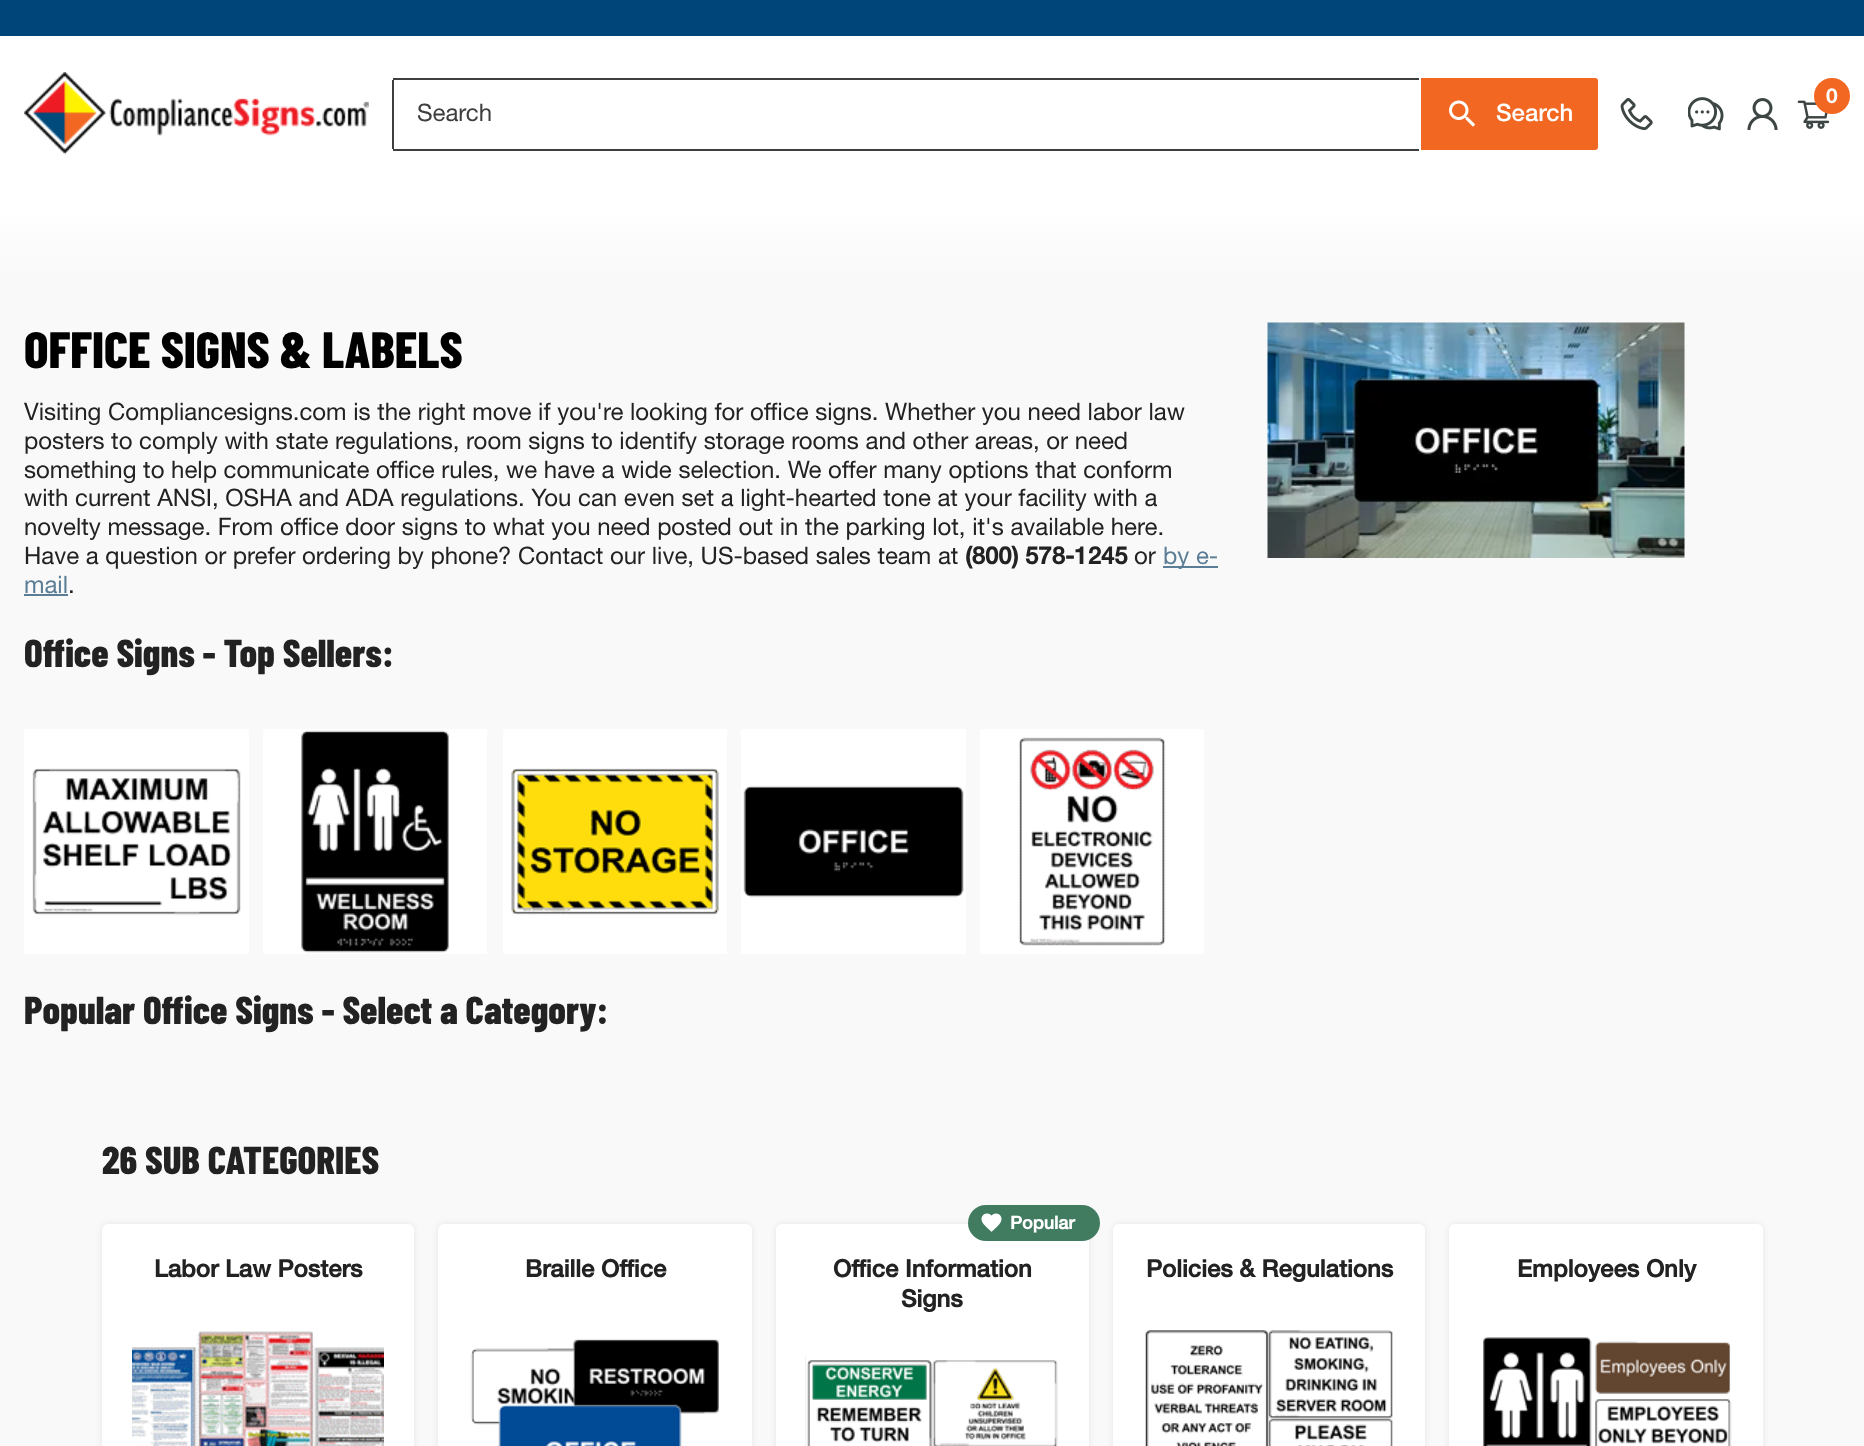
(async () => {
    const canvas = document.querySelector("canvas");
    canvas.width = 1864;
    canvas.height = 1446;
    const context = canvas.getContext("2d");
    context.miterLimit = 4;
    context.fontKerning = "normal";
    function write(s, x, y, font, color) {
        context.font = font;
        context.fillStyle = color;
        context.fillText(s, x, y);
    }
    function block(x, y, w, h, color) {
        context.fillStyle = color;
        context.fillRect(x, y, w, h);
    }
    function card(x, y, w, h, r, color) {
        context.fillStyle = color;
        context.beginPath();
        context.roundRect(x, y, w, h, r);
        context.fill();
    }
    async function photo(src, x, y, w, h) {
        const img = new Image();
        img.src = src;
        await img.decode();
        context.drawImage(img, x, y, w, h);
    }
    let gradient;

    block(0, 0, 1864, 1446, "rgb(0, 69, 121)");
    gradient = context.createLinearGradient(932, 36, 932, 281);
    gradient.addColorStop(0.7, "rgb(255, 255, 255)");
    gradient.addColorStop(1, "rgb(248, 248, 248)");
    context.fillStyle = gradient;
    context.fillRect(0, 36, 1864, 245);
    await photo("media/1.png", 24, 72, 345, 83);
    await photo("media/2.png", 1688, 97, 36, 34);
    await photo("media/3.png", 1747, 98, 31, 32);
    await photo("media/4.png", 1797, 100, 33, 29);
    context.fillStyle = "rgb(242, 104, 34)";
    context.beginPath();
    context.arc(1832, 96, 18, 0, Math.PI * 2);
    context.fill();
    write("0", 1826, 103, "bold 21px 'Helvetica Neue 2'", "rgb(255, 255, 255)");
    block(393, 78, 1026, 2, "rgb(62, 62, 62)");
    block(393, 149, 1026, 2, "rgb(62, 62, 62)");
    block(392, 80, 2, 69, "rgb(62, 62, 62)");
    write("Search", 417, 121, "24px Helvetica Neue", "rgb(62, 62, 62)");
    context.fillStyle = "rgb(242, 104, 34)";
    context.beginPath();
    context.roundRect(1421, 78, 177, 72, [0, 3, 3, 0]);
    context.fill();
    await photo("media/5.png", 1449, 100, 27, 27);
    write("Search", 1496, 121, "500 24px Helvetica Neue", "rgb(255, 255, 255)");
    await photo("media/6.png", 1620, 98, 33, 33);
    block(0, 281, 1864, 1165, "rgb(249, 249, 249)");
    write("OFFICE SIGNS & LABELS", 24, 368, "800 51px Barlow Condensed", "rgb(0, 0, 0)");
    write("Visiting Compliancesigns.com is the right move if you're looking for office signs. Whether you need labor law", 24, 420, "24px Helvetica Neue", "rgb(34, 34, 34)");
    write("posters to comply with state regulations, room signs to identify storage rooms and other areas, or need", 24, 449, "24px Helvetica Neue", "rgb(34, 34, 34)");
    write("something to help communicate office rules, we have a wide selection. We offer many options that conform", 24, 478, "24px Helvetica Neue", "rgb(34, 34, 34)");
    write("with current ANSI, OSHA and ADA regulations. You can even set a light-hearted tone at your facility with a", 24, 506, "24px Helvetica Neue", "rgb(34, 34, 34)");
    write("novelty message. From office door signs to what you need posted out in the parking lot, it's available here.", 24, 535, "24px Helvetica Neue", "rgb(34, 34, 34)");
    write("Have a question or prefer ordering by phone? Contact our live, US-based sales team at", 24, 564, "24px Helvetica Neue", "rgb(34, 34, 34)");
    write("(800) 578-1245", 965, 564, "bold 24px Helvetica Neue", "rgb(34, 34, 34)");
    write("or", 1134, 564, "24px Helvetica Neue", "rgb(34, 34, 34)");
    block(1163, 566, 55, 2, "rgb(91, 125, 149)");
    write("by e-", 1163, 564, "24px Helvetica Neue", "rgb(91, 125, 149)");
    write("mail", 24, 593, "24px Helvetica Neue", "rgb(91, 125, 149)");
    block(24, 594, 44, 2, "rgb(91, 125, 149)");
    write(".", 68, 593, "24px Helvetica Neue", "rgb(34, 34, 34)");
    write("Office Signs - Top Sellers:", 24, 667, "800 39px Barlow Condensed", "rgb(34, 34, 34)");
    await photo("media/7.png", 24, 729, 225, 225);
    await photo("media/8.png", 263, 729, 224, 225);
    await photo("media/9.png", 503, 729, 224, 225);
    await photo("media/10.png", 741, 729, 225, 225);
    await photo("media/11.png", 980, 729, 224, 225);
    write("Popular Office Signs - Select a Category:", 24, 1024, "800 39px Barlow Condensed", "rgb(34, 34, 34)");
    await photo("media/12.png", 1267, 322, 418, 236);
    write("26 SUB CATEGORIES", 102, 1174, "800 39px Barlow Condensed", "rgb(34, 34, 34)");
    context.fillStyle = "rgba(0, 0, 0, 0.08)";
    context.filter = "blur(3px)";
    context.beginPath();
    context.roundRect(102, 1224, 312, 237, 6);
    context.fill();
    context.filter = "none";
    card(102, 1224, 312, 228, 6, "rgb(255, 255, 255)");
    write("Labor Law Posters", 154, 1277, "bold 24px Helvetica Neue", "rgb(34, 34, 34)");
    await photo("media/13.png", 132, 1331, 252, 115);
    context.fillStyle = "rgba(0, 0, 0, 0.08)";
    context.filter = "blur(3px)";
    context.beginPath();
    context.roundRect(438, 1224, 314, 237, 6);
    context.fill();
    context.filter = "none";
    card(438, 1224, 314, 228, 6, "rgb(255, 255, 255)");
    write("Braille Office", 525, 1277, "bold 24px Helvetica Neue", "rgb(34, 34, 34)");
    await photo("media/14.png", 470, 1339, 249, 107);
    context.fillStyle = "rgba(0, 0, 0, 0.08)";
    context.filter = "blur(3px)";
    context.beginPath();
    context.roundRect(776, 1224, 313, 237, 6);
    context.fill();
    context.filter = "none";
    card(776, 1224, 313, 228, 6, "rgb(255, 255, 255)");
    card(968, 1205, 132, 36, 18, "rgb(65, 124, 97)");
    await photo("media/15.png", 981, 1213, 21, 19);
    write("Popular", 1010, 1229, "bold 18px Helvetica Neue", "rgb(255, 255, 255)");
    write("Office Information", 833, 1277, "bold 24px Helvetica Neue", "rgb(34, 34, 34)");
    write("Signs", 901, 1307, "bold 24px Helvetica Neue", "rgb(34, 34, 34)");
    block(805, 1356, 1, 90, "rgb(230, 230, 230)");
    await photo("media/16.png", 805, 1356, 253, 90);
    context.fillStyle = "rgba(0, 0, 0, 0.08)";
    context.filter = "blur(3px)";
    context.beginPath();
    context.roundRect(1113, 1224, 312, 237, 6);
    context.fill();
    context.filter = "none";
    card(1113, 1224, 312, 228, 6, "rgb(255, 255, 255)");
    write("Policies & Regulations", 1146, 1277, "bold 24px Helvetica Neue", "rgb(34, 34, 34)");
    await photo("media/17.png", 1145, 1330, 248, 116);
    context.fillStyle = "rgba(0, 0, 0, 0.08)";
    context.filter = "blur(3px)";
    context.beginPath();
    context.roundRect(1449, 1224, 314, 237, 6);
    context.fill();
    context.filter = "none";
    card(1449, 1224, 314, 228, 6, "rgb(255, 255, 255)");
    write("Employees Only", 1517, 1277, "bold 24px Helvetica Neue", "rgb(34, 34, 34)");
    await photo("media/18.png", 1483, 1337, 249, 109);
})();
